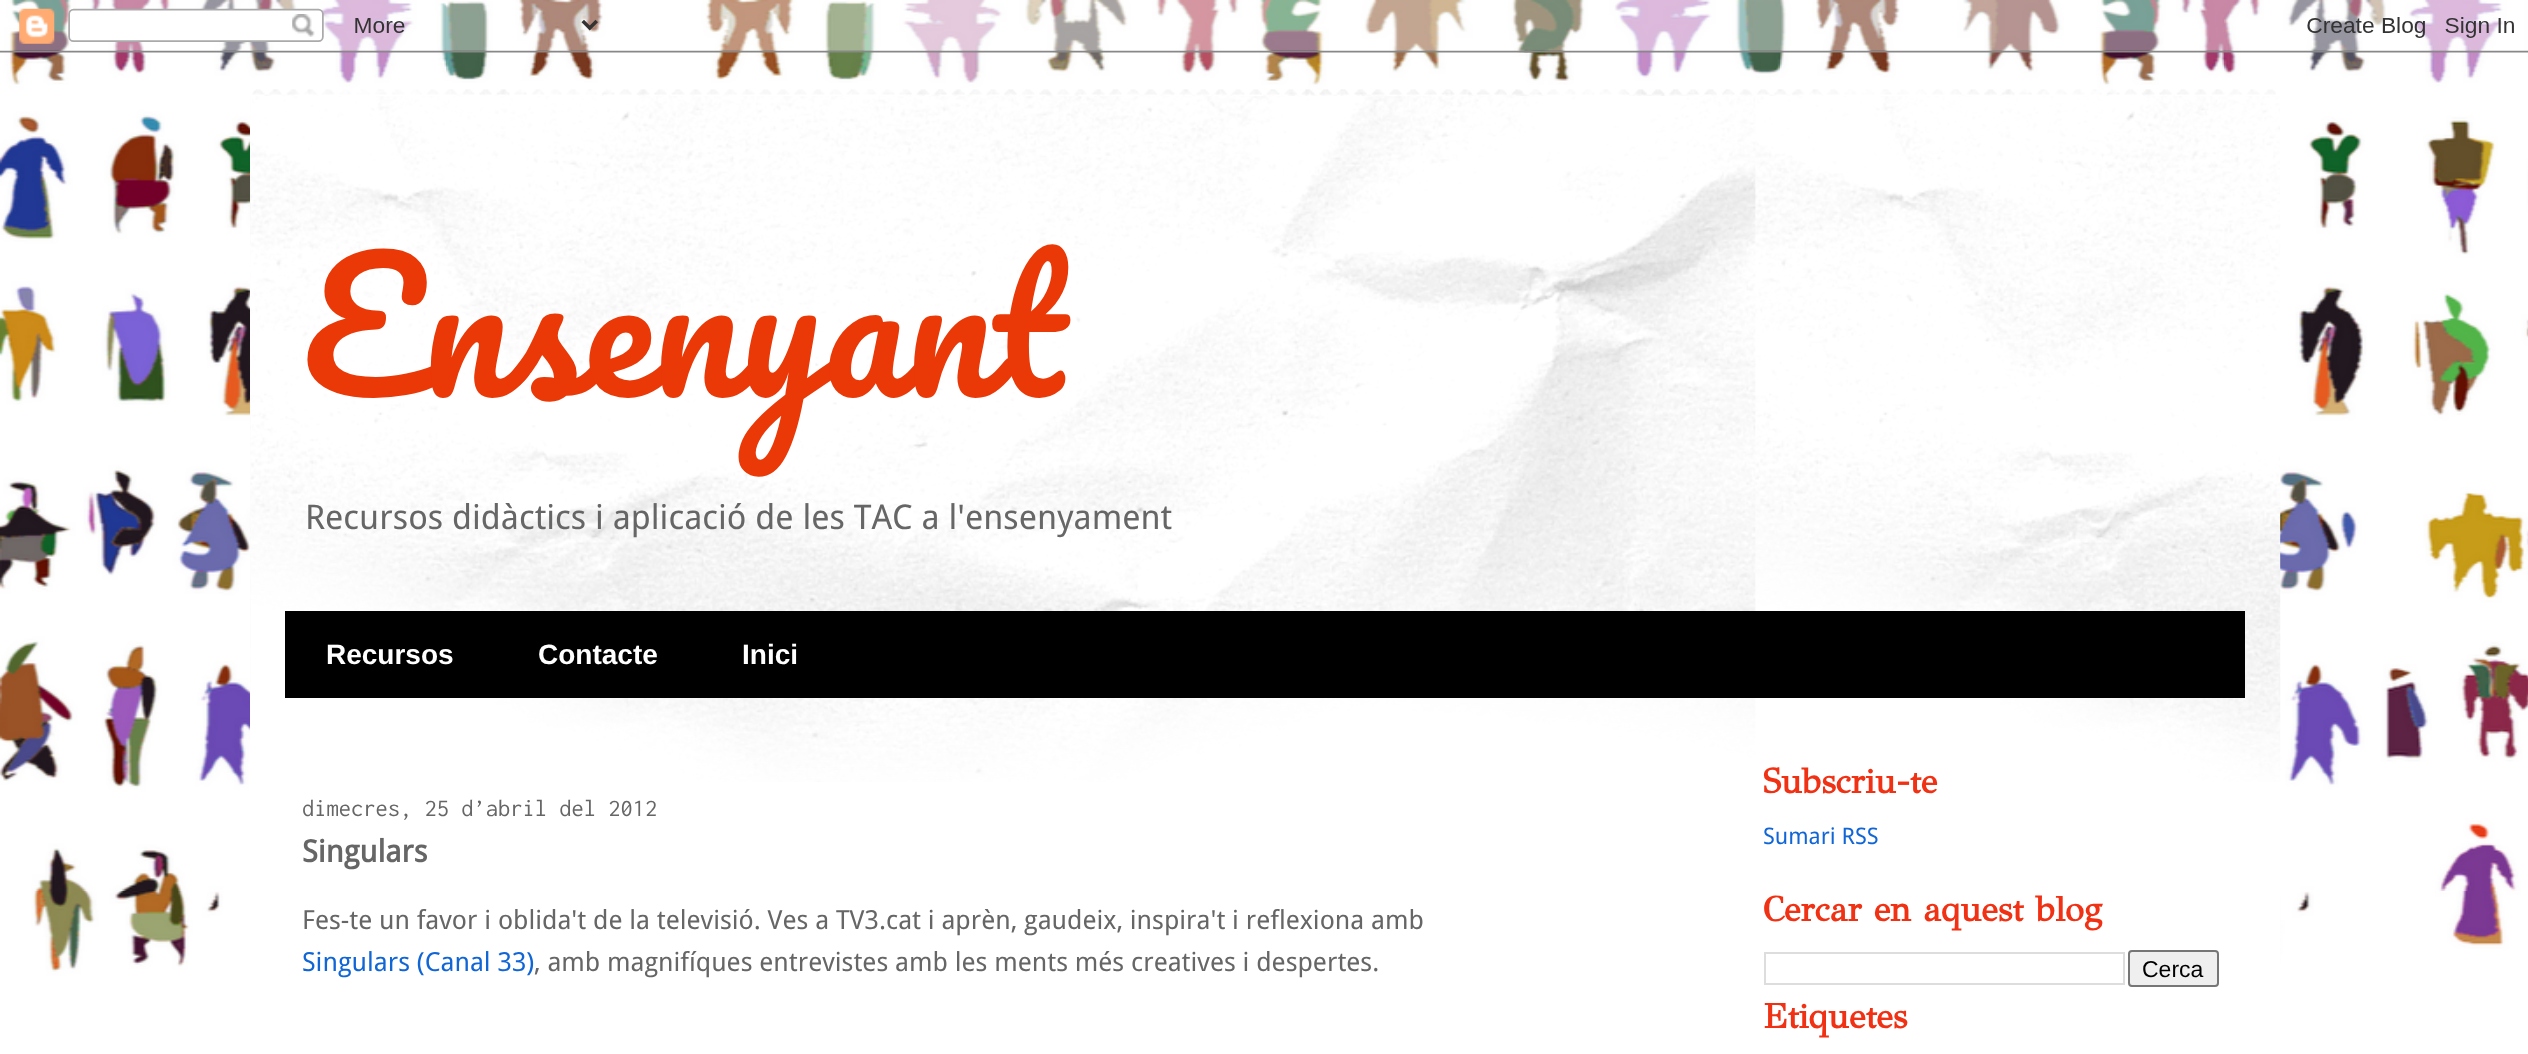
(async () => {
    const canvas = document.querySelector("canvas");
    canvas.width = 2528;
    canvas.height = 1054;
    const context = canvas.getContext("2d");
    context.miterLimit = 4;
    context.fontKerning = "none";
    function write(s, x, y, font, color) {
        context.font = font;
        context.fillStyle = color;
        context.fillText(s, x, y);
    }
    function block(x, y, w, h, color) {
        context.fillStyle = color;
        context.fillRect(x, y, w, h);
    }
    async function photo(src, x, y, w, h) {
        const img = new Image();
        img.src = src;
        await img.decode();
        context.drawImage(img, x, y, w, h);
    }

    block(0, 0, 2528, 1054, "rgb(255, 255, 255)");
    await photo("media/1.png", 0, 0, 2528, 1054);
    await photo("media/2.png", 0, 0, 2528, 53);
    await photo("media/3.png", 252, 89, 2024, 7);
    block(250, 110, 2030, 865, "rgb(255, 255, 255)");
    await photo("media/4.png", 250, 96, 2031, 686);
    write("Ensenyant", 302, 397, "175px Pacifico", "rgb(235, 56, 7)");
    write("Recursos didàctics i aplicació de les TAC a l'ensenyament", 305, 529, "34.1px Droid Sans", "rgb(102, 102, 102)");
    block(285, 611, 1960, 87, "rgb(0, 0, 0)");
    write("Recursos", 326, 664, "bold 28px Liberation Sans", "rgb(255, 255, 255)");
    write("Contacte", 538, 664, "bold 28px Liberation Sans", "rgb(255, 255, 255)");
    write("Inici", 742, 664, "bold 28px Liberation Sans", "rgb(255, 255, 255)");
    write("dimecres, 25 d’abril del 2012", 302, 816, "24.5px Inconsolata", "rgb(102, 102, 102)");
    write("Singulars", 302, 862, "bold 30.5px Droid Sans", "rgb(102, 102, 102)");
    write("Fes-te un favor i oblida't de la televisió. Ves a TV3.cat i aprèn, gaudeix, inspira't i reflexiona amb", 302, 929, "26.25px Droid Sans", "rgb(102, 102, 102)");
    write("Singulars (Canal 33)", 302, 971, "26.25px Droid Sans", "rgb(17, 102, 214)");
    write(", amb magnifíques entrevistes amb les ments més creatives i despertes.", 534, 971, "26.25px Droid Sans", "rgb(102, 102, 102)");
    write("Subscriu-te", 1763, 793, "bold 35px GFS Didot", "rgb(240, 49, 20)");
    write("Sumari RSS", 1763, 844, "22.75px Droid Sans", "rgb(17, 102, 214)");
    write("Cercar en aquest blog", 1763, 921, "bold 35px GFS Didot", "rgb(240, 49, 20)");
    context.strokeStyle = "rgb(221, 221, 221)";
    context.lineWidth = 2;
    context.strokeRect(1765, 953, 359, 31);
    context.fillStyle = "rgb(239, 239, 239)";
    context.beginPath();
    context.roundRect(2129, 951, 89, 35, 3);
    context.fill();
    context.strokeStyle = "rgb(118, 118, 118)";
    context.stroke();
    write("Cerca", 2142, 977, "23px Liberation Sans", "rgb(0, 0, 0)");
    write("Etiquetes", 1763, 1028, "bold 35px GFS Didot", "rgb(240, 49, 20)");
})();
